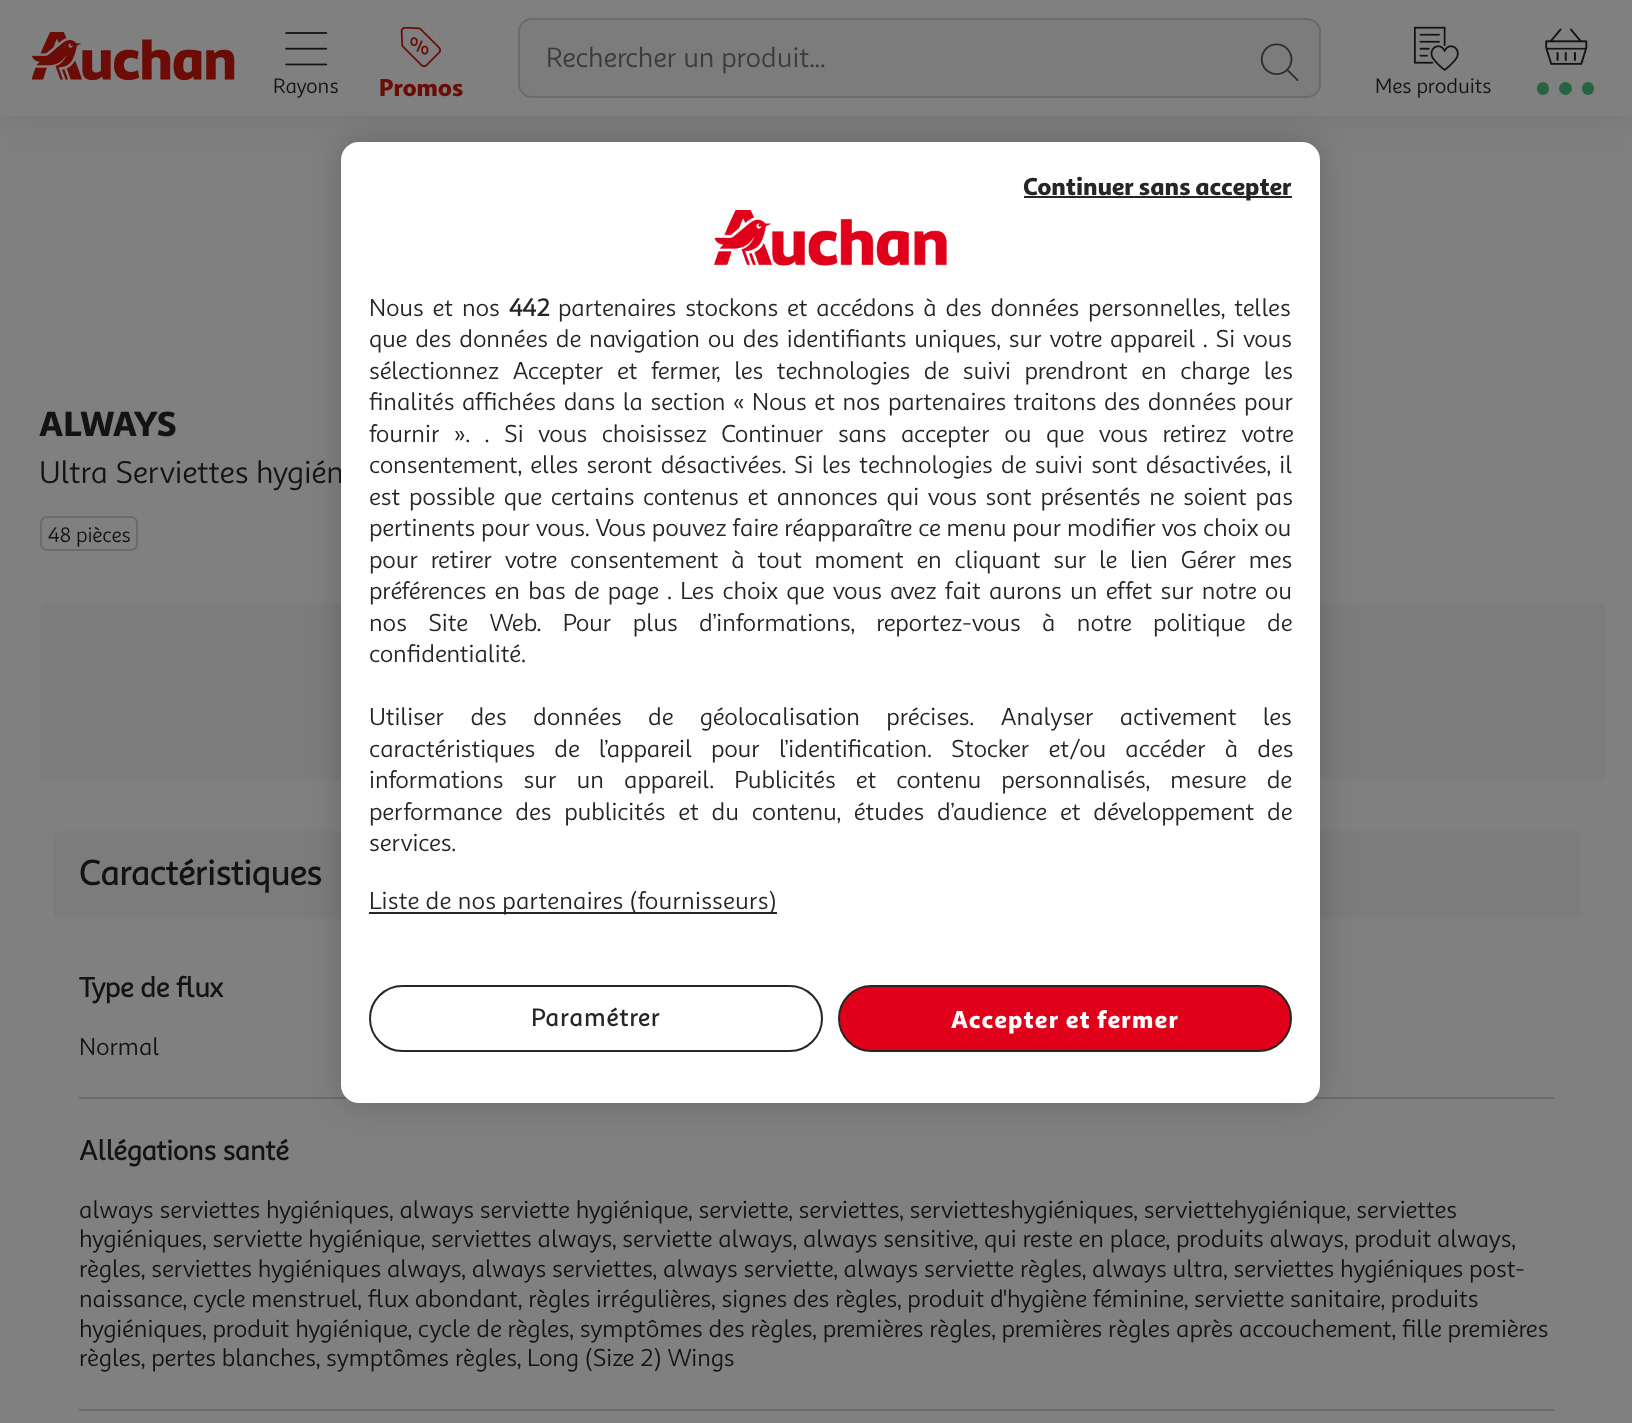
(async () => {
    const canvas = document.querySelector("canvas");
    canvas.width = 1632;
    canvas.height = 1423;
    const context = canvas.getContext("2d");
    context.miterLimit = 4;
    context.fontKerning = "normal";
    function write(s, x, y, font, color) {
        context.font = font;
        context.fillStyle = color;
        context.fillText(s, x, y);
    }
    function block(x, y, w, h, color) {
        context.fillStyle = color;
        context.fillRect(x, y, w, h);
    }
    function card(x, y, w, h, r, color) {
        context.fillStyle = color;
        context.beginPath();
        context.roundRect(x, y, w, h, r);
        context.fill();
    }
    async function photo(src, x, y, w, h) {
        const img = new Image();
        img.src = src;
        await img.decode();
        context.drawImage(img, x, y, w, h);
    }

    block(0, 0, 1632, 1423, "rgb(128, 128, 128)");
    context.fillStyle = "rgba(58, 65, 68, 0.2)";
    context.filter = "blur(17.5px)";
    context.beginPath();
    context.rect(0, 0, 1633, 116);
    context.fill();
    context.filter = "none";
    block(0, 0, 1632, 116, "rgb(128, 128, 128)");
    await photo("media/1.png", 32, 32, 203, 49);
    context.fillStyle = "rgb(124, 124, 124)";
    context.beginPath();
    context.roundRect(519, 19, 801, 78, 13);
    context.fill();
    context.strokeStyle = "rgb(104, 108, 110)";
    context.lineWidth = 2;
    context.stroke();
    write("Rechercher un produit...", 546, 67, "28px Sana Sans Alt", "rgb(59, 59, 59)");
    await photo("media/2.png", 1260, 43, 39, 38);
    await photo("media/3.png", 1545, 28, 43, 37);
    card(1537, 82, 12, 13, 6, "rgb(40, 100, 65)");
    context.beginPath();
    context.arc(1565.5, 88.5, 6.5, 0, Math.PI * 2);
    context.fill();
    card(1582, 82, 12, 13, 6, "rgb(40, 100, 65)");
    await photo("media/4.png", 285, 32, 43, 34);
    write("Rayons", 273, 93, "21px Sana Sans Alt", "rgb(19, 19, 19)");
    await photo("media/5.png", 400, 26, 41, 42);
    write("Promos", 379, 96, "900 24.5px Sana Sans Alt", "rgb(107, 12, 6)");
    await photo("media/6.png", 1413, 26, 46, 45);
    write("Mes produits", 1375, 93, "21px Sana Sans Alt", "rgb(19, 19, 19)");
    write("ALWAYS", 39, 436, "900 35px Sana Sans Alt", "rgb(19, 19, 19)");
    write("Ultra Serviettes hygién", 39, 483, "31.5px Sana Sans Alt", "rgb(19, 19, 19)");
    context.beginPath();
    context.roundRect(41, 517, 96, 33, 6);
    context.stroke();
    write("48 pièces", 48, 542, "21px Sana Sans Alt", "rgb(19, 19, 19)");
    card(40, 604, 1567, 175, 7, "rgb(124, 124, 124)");
    card(53, 831, 1527, 88, 7, "rgb(124, 124, 124)");
    write("Caractéristiques", 79, 885, "bold 35px Sana Sans Alt", "rgb(19, 19, 19)");
    block(79, 1097, 1475, 2, "rgb(104, 108, 110)");
    write("Type de flux", 79, 997, "bold 28px Sana Sans Alt", "rgb(19, 19, 19)");
    write("Normal", 79, 1055, "24.5px Sana Sans Alt", "rgb(19, 19, 19)");
    block(79, 1409, 1475, 2, "rgb(104, 108, 110)");
    write("Allégations santé", 79, 1160, "bold 28px Sana Sans Alt", "rgb(19, 19, 19)");
    write("always serviettes hygiéniques, always serviette hygiénique, serviette, serviettes, servietteshygiéniques, serviettehygiénique, serviettes", 79, 1218, "24.5px Sana Sans Alt", "rgb(19, 19, 19)");
    write("hygiéniques, serviette hygiénique, serviettes always, serviette always, always sensitive, qui reste en place, produits always, produit always,", 79, 1247, "24.5px Sana Sans Alt", "rgb(19, 19, 19)");
    write("règles, serviettes hygiéniques always, always serviettes, always serviette, always serviette règles, always ultra, serviettes hygiéniques post-", 79, 1277, "24.5px Sana Sans Alt", "rgb(19, 19, 19)");
    write("naissance, cycle menstruel, flux abondant, règles irrégulières, signes des règles, produit d'hygiène féminine, serviette sanitaire, produits", 79, 1307, "24.5px Sana Sans Alt", "rgb(19, 19, 19)");
    write("hygiéniques, produit hygiénique, cycle de règles, symptômes des règles, premières règles, premières règles après accouchement, fille premières", 79, 1337, "24.5px Sana Sans Alt", "rgb(19, 19, 19)");
    write("règles, pertes blanches, symptômes règles, Long (Size 2) Wings", 79, 1366, "24.5px Sana Sans Alt", "rgb(19, 19, 19)");
    context.fillStyle = "rgba(0, 0, 0, 0.2)";
    context.filter = "blur(16px)";
    context.beginPath();
    context.roundRect(341, 142, 979, 961, 18);
    context.fill();
    context.filter = "none";
    card(341, 142, 979, 961, 18, "rgb(255, 255, 255)");
    context.beginPath();
    context.roundRect(370, 986, 452, 65, 32.5);
    context.strokeStyle = "rgb(38, 38, 38)";
    context.stroke();
    context.letterSpacing = "1.25px";
    write("Paramétrer", 531, 1026, "bold 24.5px Sana Sans Alt", "rgb(38, 38, 38)");
    block(1024, 196, 268, 2, "rgb(38, 38, 38)");
    context.letterSpacing = "0px";
    write("Continuer sans accepter", 1023, 195, "900 24.5px Sana Sans Alt", "rgb(38, 38, 38)");
    context.fillStyle = "rgb(224, 0, 26)";
    context.beginPath();
    context.roundRect(839, 986, 452, 65, 32.5);
    context.fill();
    context.stroke();
    context.letterSpacing = "1.25px";
    write("Accepter et fermer", 951, 1028, "900 24.5px Sana Sans Alt", "rgb(255, 255, 255)");
    await photo("media/7.png", 714, 210, 233, 56);
    context.letterSpacing = "0px";
    context.wordSpacing = "3px";
    write("Nous et nos", 369, 316, "24.5px Sana Sans Alt", "rgb(38, 38, 38)");
    context.wordSpacing = "0px";
    write("442", 509, 316, "bold 24.5px Sana Sans Alt", "rgb(38, 38, 38)");
    context.wordSpacing = "3px";
    write("partenaires stockons et accédons à des données personnelles, telles", 558, 316, "24.5px Sana Sans Alt", "rgb(38, 38, 38)");
    context.wordSpacing = "2px";
    write("que des données de navigation ou des identifiants uniques, sur votre appareil . Si vous", 369, 347, "24.5px Sana Sans Alt", "rgb(38, 38, 38)");
    context.wordSpacing = "7.75px";
    write("sélectionnez Accepter et fermer, les technologies de suivi prendront en charge les", 369, 379, "24.5px Sana Sans Alt", "rgb(38, 38, 38)");
    context.wordSpacing = "1.75px";
    write("finalités affichées dans la section « Nous et nos partenaires traitons des données pour", 369, 410, "24.5px Sana Sans Alt", "rgb(38, 38, 38)");
    context.wordSpacing = "8.75px";
    write("fournir ». . Si vous choisissez Continuer sans accepter ou que vous retirez votre", 369, 442, "24.5px Sana Sans Alt", "rgb(38, 38, 38)");
    context.wordSpacing = "2.5px";
    write("consentement, elles seront désactivées.", 369, 473, "24.5px Sana Sans Alt", "rgb(38, 38, 38)");
    write("Si les technologies de suivi sont désactivées, il", 794, 473, "24.5px Sana Sans Alt", "rgb(38, 38, 38)");
    context.wordSpacing = "2.9px";
    write("est possible que certains contenus et annonces qui vous sont présentés ne soient pas", 369, 505, "24.5px Sana Sans Alt", "rgb(38, 38, 38)");
    context.wordSpacing = "0px";
    write("pertinents pour vous. Vous pouvez faire réapparaître ce menu pour modifier vos choix ou", 369, 536, "24.5px Sana Sans Alt", "rgb(38, 38, 38)");
    context.wordSpacing = "6.9px";
    write("pour retirer votre consentement à tout moment en cliquant sur le lien Gérer mes", 369, 568, "24.5px Sana Sans Alt", "rgb(38, 38, 38)");
    context.wordSpacing = "2.4px";
    write("préférences en bas de page . Les choix que vous avez fait aurons un effet sur notre ou", 369, 599, "24.5px Sana Sans Alt", "rgb(38, 38, 38)");
    context.wordSpacing = "15.5px";
    write("nos Site Web. Pour plus d’informations, reportez-vous à notre politique de", 369, 631, "24.5px Sana Sans Alt", "rgb(38, 38, 38)");
    context.wordSpacing = "0px";
    write("confidentialité.", 369, 662, "24.5px Sana Sans Alt", "rgb(38, 38, 38)");
    context.wordSpacing = "20.5px";
    write("Utiliser des données de géolocalisation précises. Analyser activement les", 369, 725, "24.5px Sana Sans Alt", "rgb(38, 38, 38)");
    context.wordSpacing = "13.25px";
    write("caractéristiques de l’appareil pour l’identification. Stocker et/ou accéder à des", 369, 757, "24.5px Sana Sans Alt", "rgb(38, 38, 38)");
    context.wordSpacing = "14.25px";
    write("informations sur un appareil. Publicités et contenu personnalisés, mesure de", 369, 788, "24.5px Sana Sans Alt", "rgb(38, 38, 38)");
    context.wordSpacing = "7px";
    write("performance des publicités et du contenu, études d’audience et développement de", 369, 820, "24.5px Sana Sans Alt", "rgb(38, 38, 38)");
    context.wordSpacing = "0px";
    write("services.", 369, 851, "24.5px Sana Sans Alt", "rgb(38, 38, 38)");
    block(369, 912, 408, 2, "rgb(38, 38, 38)");
    context.letterSpacing = "0.25px";
    write("Liste de nos partenaires (fournisseurs)", 369, 909, "24.5px Sana Sans Alt", "rgb(38, 38, 38)");
})();
